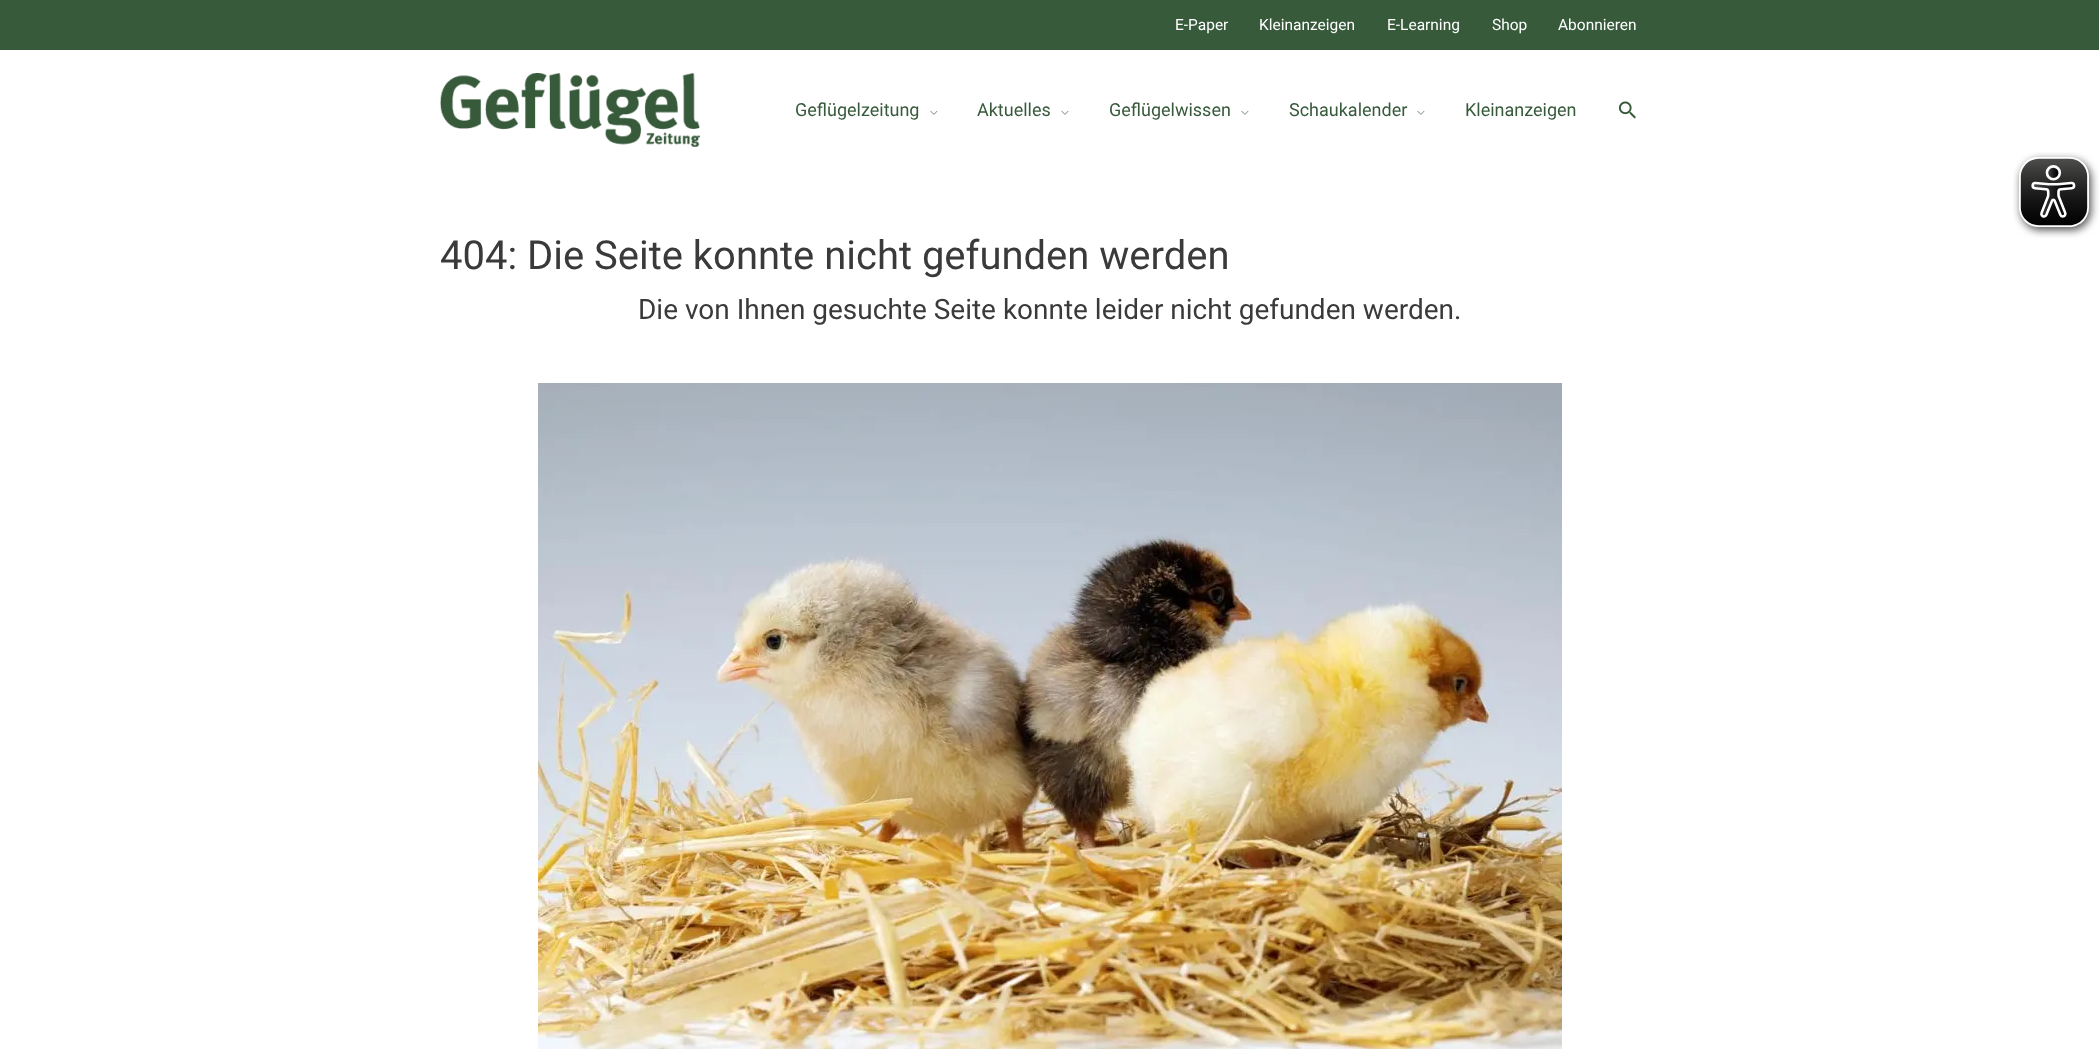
(async () => {
    const canvas = document.querySelector("canvas");
    canvas.width = 2099;
    canvas.height = 1049;
    const context = canvas.getContext("2d");
    context.miterLimit = 4;
    context.fontKerning = "normal";
    function write(s, x, y, font, color) {
        context.font = font;
        context.fillStyle = color;
        context.fillText(s, x, y);
    }
    function block(x, y, w, h, color) {
        context.fillStyle = color;
        context.fillRect(x, y, w, h);
    }
    async function photo(src, x, y, w, h) {
        const img = new Image();
        img.src = src;
        await img.decode();
        context.drawImage(img, x, y, w, h);
    }

    block(0, 0, 2099, 1049, "rgb(255, 255, 255)");
    block(0, 0, 2099, 50, "rgb(55, 90, 59)");
    write("E-Paper", 1175, 30, "15.5px Roboto", "rgb(255, 255, 255)");
    write("Kleinanzeigen", 1259, 30, "15.5px Roboto", "rgb(255, 255, 255)");
    write("E-Learning", 1387, 30, "15.5px Roboto", "rgb(255, 255, 255)");
    write("Shop", 1492, 30, "15.5px Roboto", "rgb(255, 255, 255)");
    write("Abonnieren", 1558, 30, "15.5px Roboto", "rgb(255, 255, 255)");
    await photo("media/1.png", 440, 73, 260, 74);
    write("Geflügelzeitung", 795, 116, "18px Roboto", "rgb(55, 90, 59)");
    await photo("media/2.png", 930, 110, 8, 5);
    write("Aktuelles", 977, 116, "18px Roboto", "rgb(55, 90, 59)");
    await photo("media/2.png", 1061, 110, 8, 5);
    write("Geflügelwissen", 1109, 116, "18px Roboto", "rgb(55, 90, 59)");
    await photo("media/2.png", 1241, 110, 8, 5);
    write("Schaukalender", 1289, 116, "18px Roboto", "rgb(55, 90, 59)");
    await photo("media/2.png", 1417, 110, 8, 5);
    write("Kleinanzeigen", 1465, 116, "18px Roboto", "rgb(55, 90, 59)");
    await photo("media/3.png", 1618, 101, 18, 18);
    write("404: Die Seite konnte nicht gefunden werden", 440, 269, "40px Roboto", "rgb(58, 58, 58)");
    write("Die von Ihnen gesuchte Seite konnte leider nicht gefunden werden.", 638, 319, "28px Roboto", "rgb(58, 58, 58)");
    await photo("media/4.png", 538, 383, 1024, 666);
    await photo("media/5.png", 2013, 152, 86, 86);
})();
